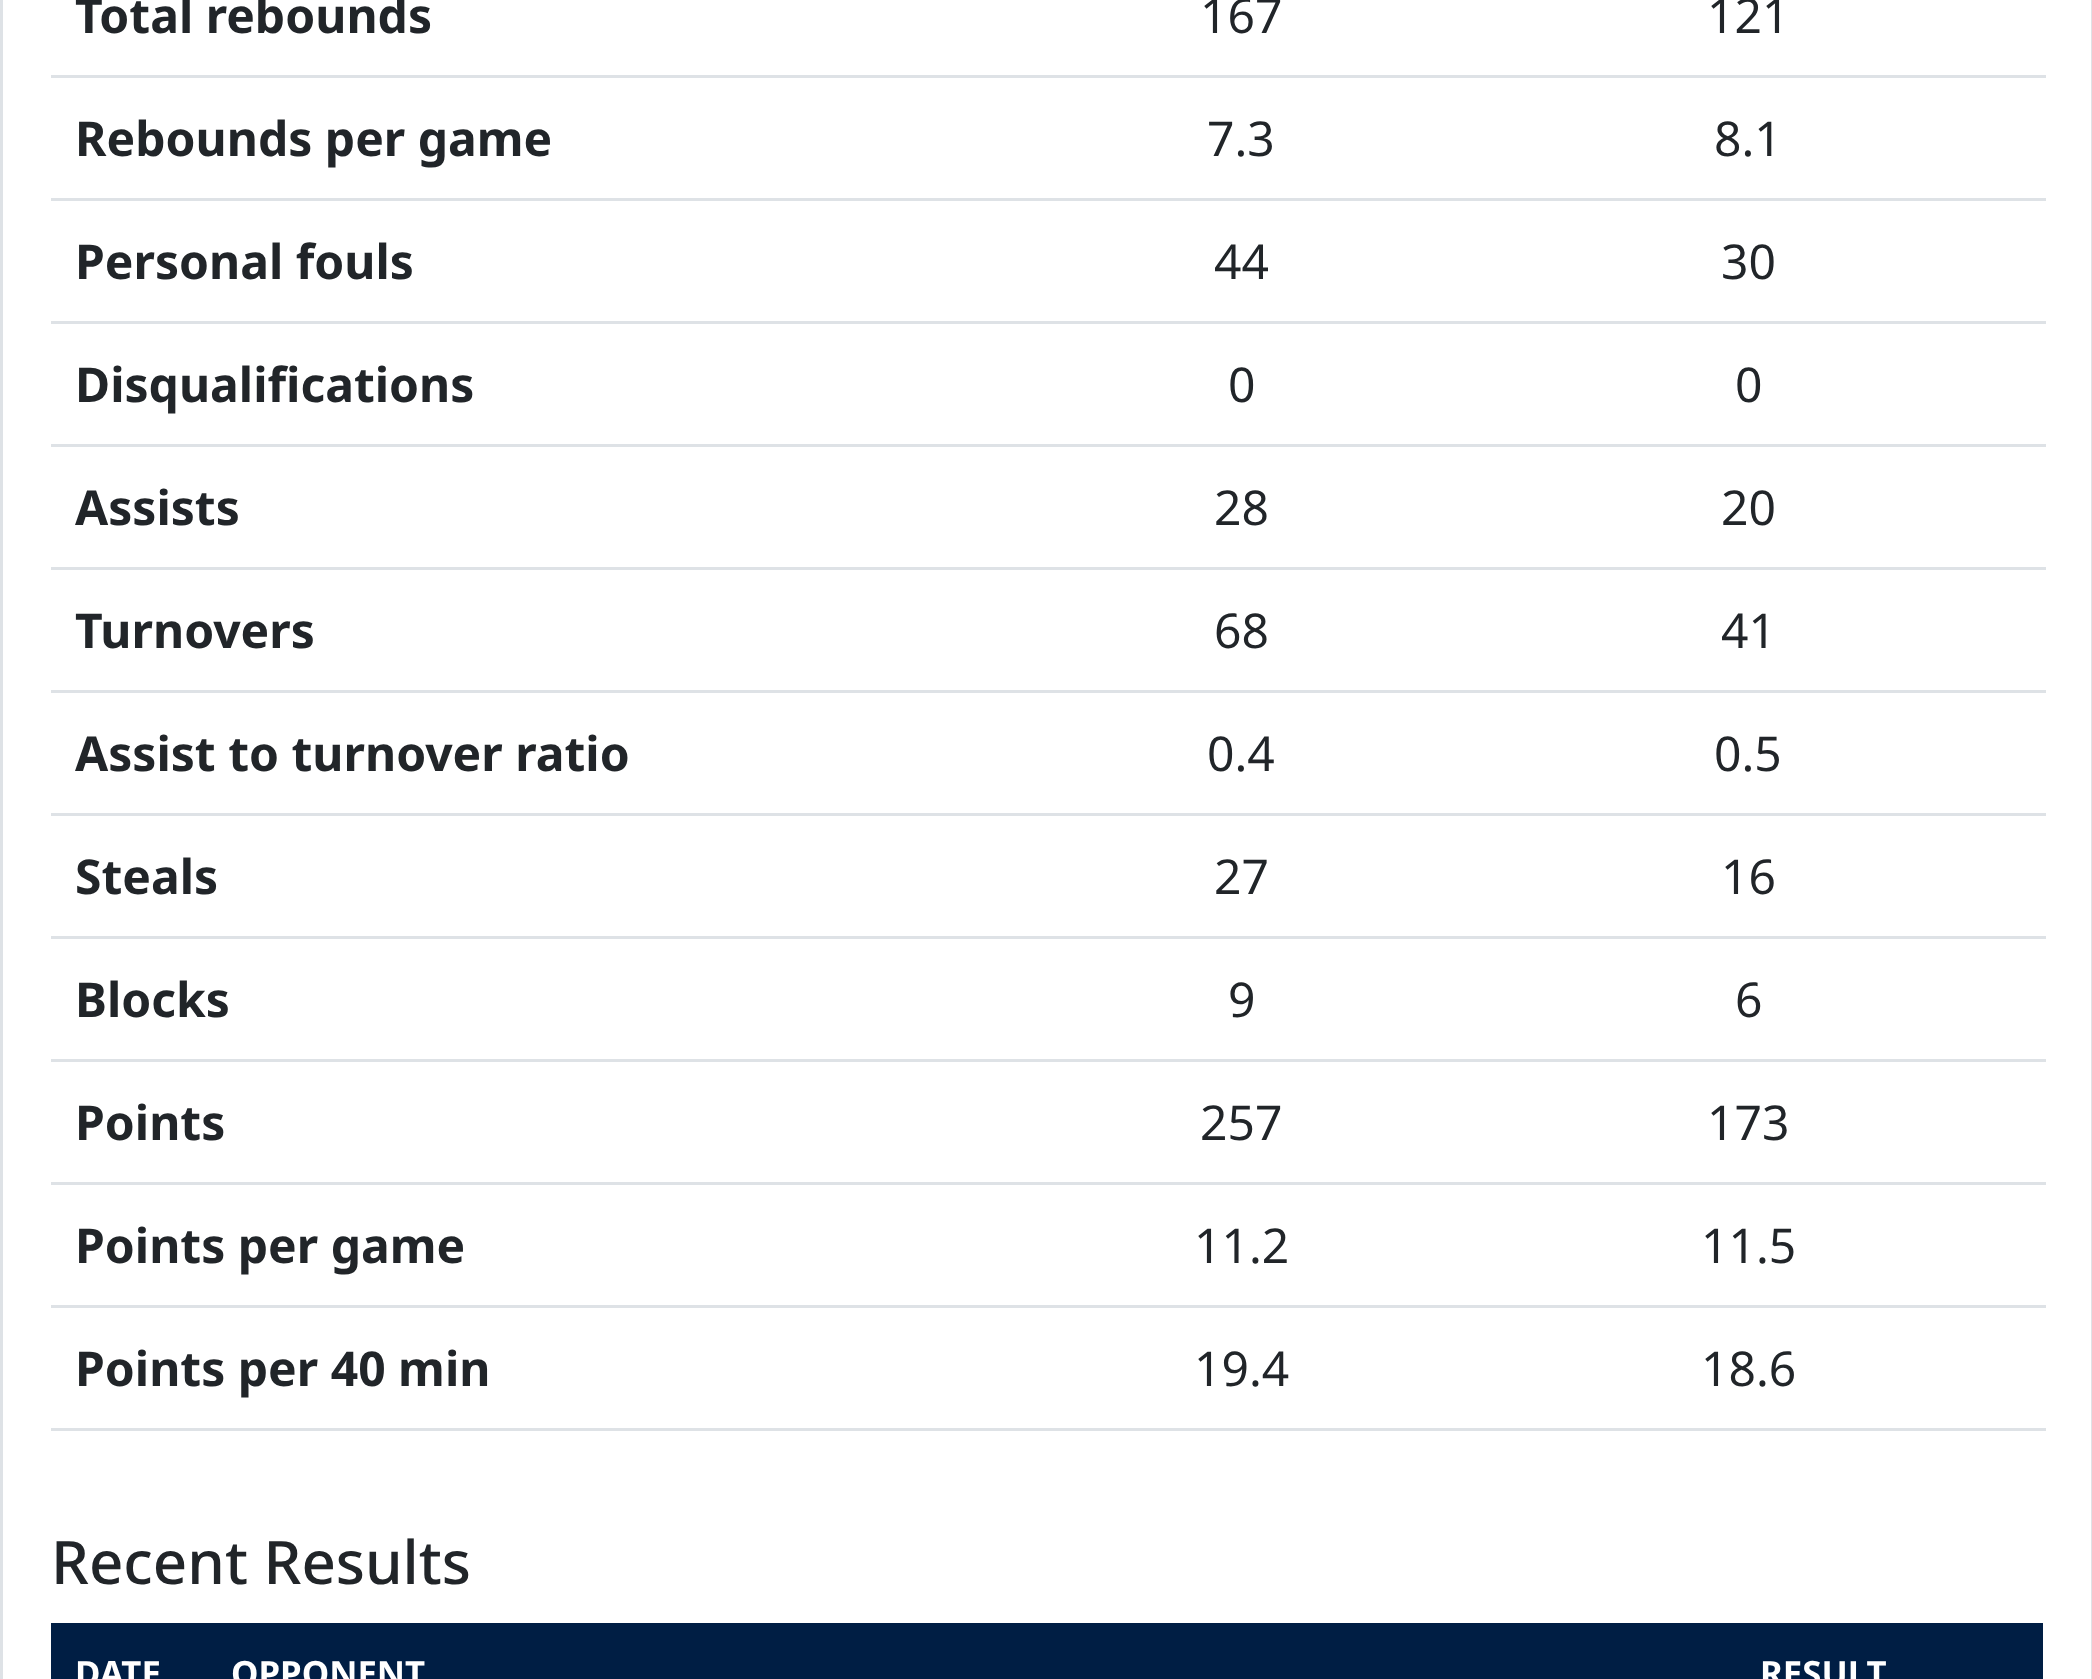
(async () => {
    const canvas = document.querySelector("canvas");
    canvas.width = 2092;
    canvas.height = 1679;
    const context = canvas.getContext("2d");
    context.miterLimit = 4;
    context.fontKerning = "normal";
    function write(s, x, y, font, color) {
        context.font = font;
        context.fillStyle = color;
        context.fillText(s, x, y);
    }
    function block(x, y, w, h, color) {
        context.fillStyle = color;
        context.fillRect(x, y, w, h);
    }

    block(0, 0, 2092, 1679, "rgb(255, 255, 255)");
    context.strokeStyle = "rgb(222, 226, 230)";
    context.lineWidth = 3;
    context.strokeRect(1.5, -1.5, 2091, 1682);
    write("Total rebounds", 75, 33, "bold 48px Noto Sans", "rgb(33, 37, 41)");
    write("167", 1200, 33, "48px Noto Sans", "rgb(33, 37, 41)");
    block(51, 75, 1995, 3, "rgb(222, 226, 230)");
    write("121", 1707, 33, "48px Noto Sans", "rgb(33, 37, 41)");
    write("Rebounds per game", 75, 156, "bold 48px Noto Sans", "rgb(33, 37, 41)");
    write("7.3", 1207, 156, "48px Noto Sans", "rgb(33, 37, 41)");
    block(51, 198, 1995, 3, "rgb(222, 226, 230)");
    write("8.1", 1714, 156, "48px Noto Sans", "rgb(33, 37, 41)");
    write("Personal fouls", 75, 279, "bold 48px Noto Sans", "rgb(33, 37, 41)");
    write("44", 1214, 279, "48px Noto Sans", "rgb(33, 37, 41)");
    block(51, 321, 1995, 3, "rgb(222, 226, 230)");
    write("30", 1721, 279, "48px Noto Sans", "rgb(33, 37, 41)");
    write("Disqualifications", 75, 402, "bold 48px Noto Sans", "rgb(33, 37, 41)");
    write("0", 1228, 402, "48px Noto Sans", "rgb(33, 37, 41)");
    block(51, 444, 1995, 3, "rgb(222, 226, 230)");
    write("0", 1735, 402, "48px Noto Sans", "rgb(33, 37, 41)");
    write("Assists", 75, 525, "bold 48px Noto Sans", "rgb(33, 37, 41)");
    write("28", 1214, 525, "48px Noto Sans", "rgb(33, 37, 41)");
    block(51, 567, 1995, 3, "rgb(222, 226, 230)");
    write("20", 1721, 525, "48px Noto Sans", "rgb(33, 37, 41)");
    write("Turnovers", 75, 648, "bold 48px Noto Sans", "rgb(33, 37, 41)");
    write("68", 1214, 648, "48px Noto Sans", "rgb(33, 37, 41)");
    block(51, 690, 1995, 3, "rgb(222, 226, 230)");
    write("41", 1721, 648, "48px Noto Sans", "rgb(33, 37, 41)");
    write("Assist to turnover ratio", 75, 771, "bold 48px Noto Sans", "rgb(33, 37, 41)");
    write("0.4", 1207, 771, "48px Noto Sans", "rgb(33, 37, 41)");
    block(51, 813, 1995, 3, "rgb(222, 226, 230)");
    write("0.5", 1714, 771, "48px Noto Sans", "rgb(33, 37, 41)");
    write("Steals", 75, 894, "bold 48px Noto Sans", "rgb(33, 37, 41)");
    write("27", 1214, 894, "48px Noto Sans", "rgb(33, 37, 41)");
    block(51, 936, 1995, 3, "rgb(222, 226, 230)");
    write("16", 1721, 894, "48px Noto Sans", "rgb(33, 37, 41)");
    write("Blocks", 75, 1017, "bold 48px Noto Sans", "rgb(33, 37, 41)");
    write("9", 1228, 1017, "48px Noto Sans", "rgb(33, 37, 41)");
    block(51, 1059, 1995, 3, "rgb(222, 226, 230)");
    write("6", 1735, 1017, "48px Noto Sans", "rgb(33, 37, 41)");
    write("Points", 75, 1140, "bold 48px Noto Sans", "rgb(33, 37, 41)");
    write("257", 1200, 1140, "48px Noto Sans", "rgb(33, 37, 41)");
    block(51, 1182, 1995, 3, "rgb(222, 226, 230)");
    write("173", 1707, 1140, "48px Noto Sans", "rgb(33, 37, 41)");
    write("Points per game", 75, 1263, "bold 48px Noto Sans", "rgb(33, 37, 41)");
    write("11.2", 1194, 1263, "48px Noto Sans", "rgb(33, 37, 41)");
    block(51, 1305, 1995, 3, "rgb(222, 226, 230)");
    write("11.5", 1701, 1263, "48px Noto Sans", "rgb(33, 37, 41)");
    write("Points per 40 min", 75, 1386, "bold 48px Noto Sans", "rgb(33, 37, 41)");
    write("19.4", 1194, 1386, "48px Noto Sans", "rgb(33, 37, 41)");
    block(51, 1428, 1995, 3, "rgb(222, 226, 230)");
    write("18.6", 1701, 1386, "48px Noto Sans", "rgb(33, 37, 41)");
    write("Recent Results", 51, 1584, "500 60px Noto Sans", "rgb(33, 37, 41)");
    block(51, 1623, 1992, 56, "rgb(0, 30, 68)");
    write("DATE", 75, 1686, "bold 34.75px Noto Sans", "rgb(255, 255, 255)");
    write("OPPONENT", 231, 1686, "bold 34.75px Noto Sans", "rgb(255, 255, 255)");
    write("RESULT", 1760, 1686, "bold 34.75px Noto Sans", "rgb(255, 255, 255)");
})();
